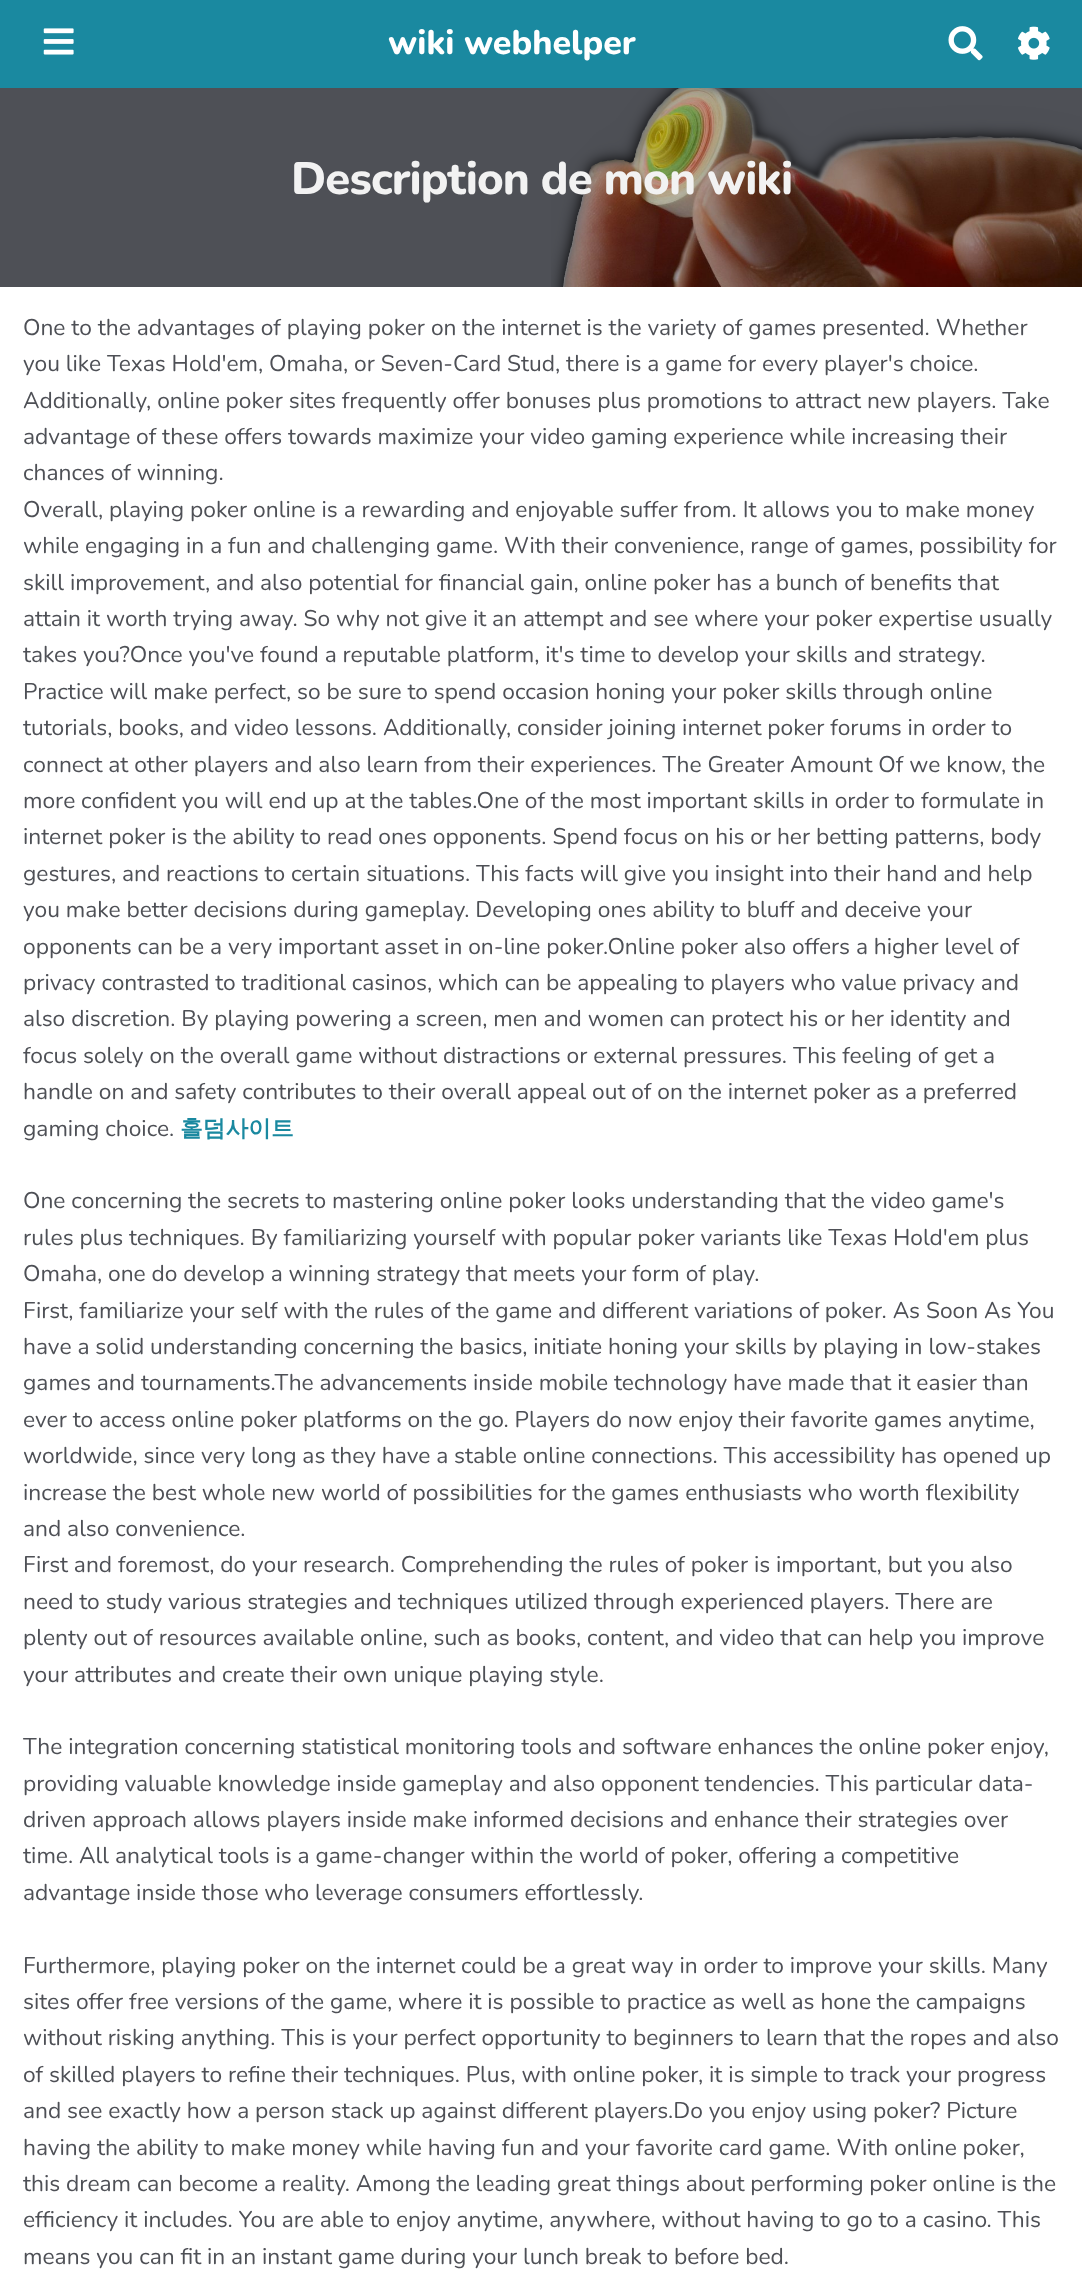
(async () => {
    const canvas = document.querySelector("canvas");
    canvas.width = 1082;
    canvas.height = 2275;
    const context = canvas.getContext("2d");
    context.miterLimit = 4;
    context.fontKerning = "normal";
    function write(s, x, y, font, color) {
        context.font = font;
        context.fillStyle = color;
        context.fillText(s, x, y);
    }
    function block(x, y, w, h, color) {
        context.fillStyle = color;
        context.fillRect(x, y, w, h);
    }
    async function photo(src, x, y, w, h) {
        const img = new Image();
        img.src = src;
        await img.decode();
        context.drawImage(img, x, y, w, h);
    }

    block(0, 0, 1082, 2275, "rgb(255, 255, 255)");
    block(0, 0, 1082, 88, "rgb(26, 137, 160)");
    await photo("media/1.png", 43, 28, 31, 27);
    write("wiki webhelper", 388, 54, "800 34px Nunito", "rgb(255, 255, 255)");
    await photo("media/2.png", 948, 26, 35, 35);
    await photo("media/3.png", 1018, 26, 32, 34);
    block(0, 88, 1082, 199, "rgb(78, 80, 86)");
    await photo("media/4.png", 551, 88, 531, 199);
    context.letterSpacing = "-0.9px";
    write("Description de mon wiki", 291, 194, "800 45.5px Nunito", "rgb(242, 242, 242)");
    context.letterSpacing = "0px";
    write("One to the advantages of playing poker on the internet is the variety of games presented. Whether", 23, 335, "22.75px Nunito", "rgb(78, 80, 86)");
    write("you like Texas Hold'em, Omaha, or Seven-Card Stud, there is a game for every player's choice.", 23, 371, "22.75px Nunito", "rgb(78, 80, 86)");
    write("Additionally, online poker sites frequently offer bonuses plus promotions to attract new players. Take", 23, 408, "22.75px Nunito", "rgb(78, 80, 86)");
    write("advantage of these offers towards maximize your video gaming experience while increasing their", 23, 444, "22.75px Nunito", "rgb(78, 80, 86)");
    write("chances of winning.", 23, 480, "22.75px Nunito", "rgb(78, 80, 86)");
    write("Overall, playing poker online is a rewarding and enjoyable suffer from. It allows you to make money", 23, 517, "22.75px Nunito", "rgb(78, 80, 86)");
    write("while engaging in a fun and challenging game. With their convenience, range of games, possibility for", 23, 553, "22.75px Nunito", "rgb(78, 80, 86)");
    write("skill improvement, and also potential for financial gain, online poker has a bunch of benefits that", 23, 590, "22.75px Nunito", "rgb(78, 80, 86)");
    write("attain it worth trying away. So why not give it an attempt and see where your poker expertise usually", 23, 626, "22.75px Nunito", "rgb(78, 80, 86)");
    write("takes you?Once you've found a reputable platform, it's time to develop your skills and strategy.", 23, 662, "22.75px Nunito", "rgb(78, 80, 86)");
    write("Practice will make perfect, so be sure to spend occasion honing your poker skills through online", 23, 699, "22.75px Nunito", "rgb(78, 80, 86)");
    write("tutorials, books, and video lessons. Additionally, consider joining internet poker forums in order to", 23, 735, "22.75px Nunito", "rgb(78, 80, 86)");
    write("connect at other players and also learn from their experiences. The Greater Amount Of we know, the", 23, 772, "22.75px Nunito", "rgb(78, 80, 86)");
    write("more confident you will end up at the tables.One of the most important skills in order to formulate in", 23, 808, "22.75px Nunito", "rgb(78, 80, 86)");
    write("internet poker is the ability to read ones opponents. Spend focus on his or her betting patterns, body", 23, 844, "22.75px Nunito", "rgb(78, 80, 86)");
    write("gestures, and reactions to certain situations. This facts will give you insight into their hand and help", 23, 881, "22.75px Nunito", "rgb(78, 80, 86)");
    write("you make better decisions during gameplay. Developing ones ability to bluff and deceive your", 23, 917, "22.75px Nunito", "rgb(78, 80, 86)");
    write("opponents can be a very important asset in on-line poker.Online poker also offers a higher level of", 23, 954, "22.75px Nunito", "rgb(78, 80, 86)");
    write("privacy contrasted to traditional casinos, which can be appealing to players who value privacy and", 23, 990, "22.75px Nunito", "rgb(78, 80, 86)");
    write("also discretion. By playing powering a screen, men and women can protect his or her identity and", 23, 1026, "22.75px Nunito", "rgb(78, 80, 86)");
    write("focus solely on the overall game without distractions or external pressures. This feeling of get a", 23, 1063, "22.75px Nunito", "rgb(78, 80, 86)");
    write("handle on and safety contributes to their overall appeal out of on the internet poker as a preferred", 23, 1099, "22.75px Nunito", "rgb(78, 80, 86)");
    write("gaming choice.", 23, 1136, "22.75px Nunito", "rgb(78, 80, 86)");
    write("홀덤사이트", 180, 1136, "bold 22.75px WenQuanYi Zen Hei", "rgb(26, 137, 160)");
    write("One concerning the secrets to mastering online poker looks understanding that the video game's", 23, 1208, "22.75px Nunito", "rgb(78, 80, 86)");
    write("rules plus techniques. By familiarizing yourself with popular poker variants like Texas Hold'em plus", 23, 1245, "22.75px Nunito", "rgb(78, 80, 86)");
    write("Omaha, one do develop a winning strategy that meets your form of play.", 23, 1281, "22.75px Nunito", "rgb(78, 80, 86)");
    write("First, familiarize your self with the rules of the game and different variations of poker. As Soon As You", 23, 1318, "22.75px Nunito", "rgb(78, 80, 86)");
    write("have a solid understanding concerning the basics, initiate honing your skills by playing in low-stakes", 23, 1354, "22.75px Nunito", "rgb(78, 80, 86)");
    write("games and tournaments.The advancements inside mobile technology have made that it easier than", 23, 1390, "22.75px Nunito", "rgb(78, 80, 86)");
    write("ever to access online poker platforms on the go. Players do now enjoy their favorite games anytime,", 23, 1427, "22.75px Nunito", "rgb(78, 80, 86)");
    write("worldwide, since very long as they have a stable online connections. This accessibility has opened up", 23, 1463, "22.75px Nunito", "rgb(78, 80, 86)");
    write("increase the best whole new world of possibilities for the games enthusiasts who worth flexibility", 23, 1500, "22.75px Nunito", "rgb(78, 80, 86)");
    write("and also convenience.", 23, 1536, "22.75px Nunito", "rgb(78, 80, 86)");
    write("First and foremost, do your research. Comprehending the rules of poker is important, but you also", 23, 1572, "22.75px Nunito", "rgb(78, 80, 86)");
    write("need to study various strategies and techniques utilized through experienced players. There are", 23, 1609, "22.75px Nunito", "rgb(78, 80, 86)");
    write("plenty out of resources available online, such as books, content, and video that can help you improve", 23, 1645, "22.75px Nunito", "rgb(78, 80, 86)");
    write("your attributes and create their own unique playing style.", 23, 1682, "22.75px Nunito", "rgb(78, 80, 86)");
    write("The integration concerning statistical monitoring tools and software enhances the online poker enjoy,", 23, 1754, "22.75px Nunito", "rgb(78, 80, 86)");
    write("providing valuable knowledge inside gameplay and also opponent tendencies. This particular data-", 23, 1791, "22.75px Nunito", "rgb(78, 80, 86)");
    write("driven approach allows players inside make informed decisions and enhance their strategies over", 23, 1827, "22.75px Nunito", "rgb(78, 80, 86)");
    write("time. All analytical tools is a game-changer within the world of poker, offering a competitive", 23, 1863, "22.75px Nunito", "rgb(78, 80, 86)");
    write("advantage inside those who leverage consumers effortlessly.", 23, 1900, "22.75px Nunito", "rgb(78, 80, 86)");
    write("Furthermore, playing poker on the internet could be a great way in order to improve your skills. Many", 23, 1973, "22.75px Nunito", "rgb(78, 80, 86)");
    write("sites offer free versions of the game, where it is possible to practice as well as hone the campaigns", 23, 2009, "22.75px Nunito", "rgb(78, 80, 86)");
    write("without risking anything. This is your perfect opportunity to beginners to learn that the ropes and also", 23, 2045, "22.75px Nunito", "rgb(78, 80, 86)");
    write("of skilled players to refine their techniques. Plus, with online poker, it is simple to track your progress", 23, 2082, "22.75px Nunito", "rgb(78, 80, 86)");
    write("and see exactly how a person stack up against different players.Do you enjoy using poker? Picture", 23, 2118, "22.75px Nunito", "rgb(78, 80, 86)");
    write("having the ability to make money while having fun and your favorite card game. With online poker,", 23, 2155, "22.75px Nunito", "rgb(78, 80, 86)");
    write("this dream can become a reality. Among the leading great things about performing poker online is the", 23, 2191, "22.75px Nunito", "rgb(78, 80, 86)");
    write("efficiency it includes. You are able to enjoy anytime, anywhere, without having to go to a casino. This", 23, 2227, "22.75px Nunito", "rgb(78, 80, 86)");
    write("means you can fit in an instant game during your lunch break to before bed.", 23, 2264, "22.75px Nunito", "rgb(78, 80, 86)");
})();
